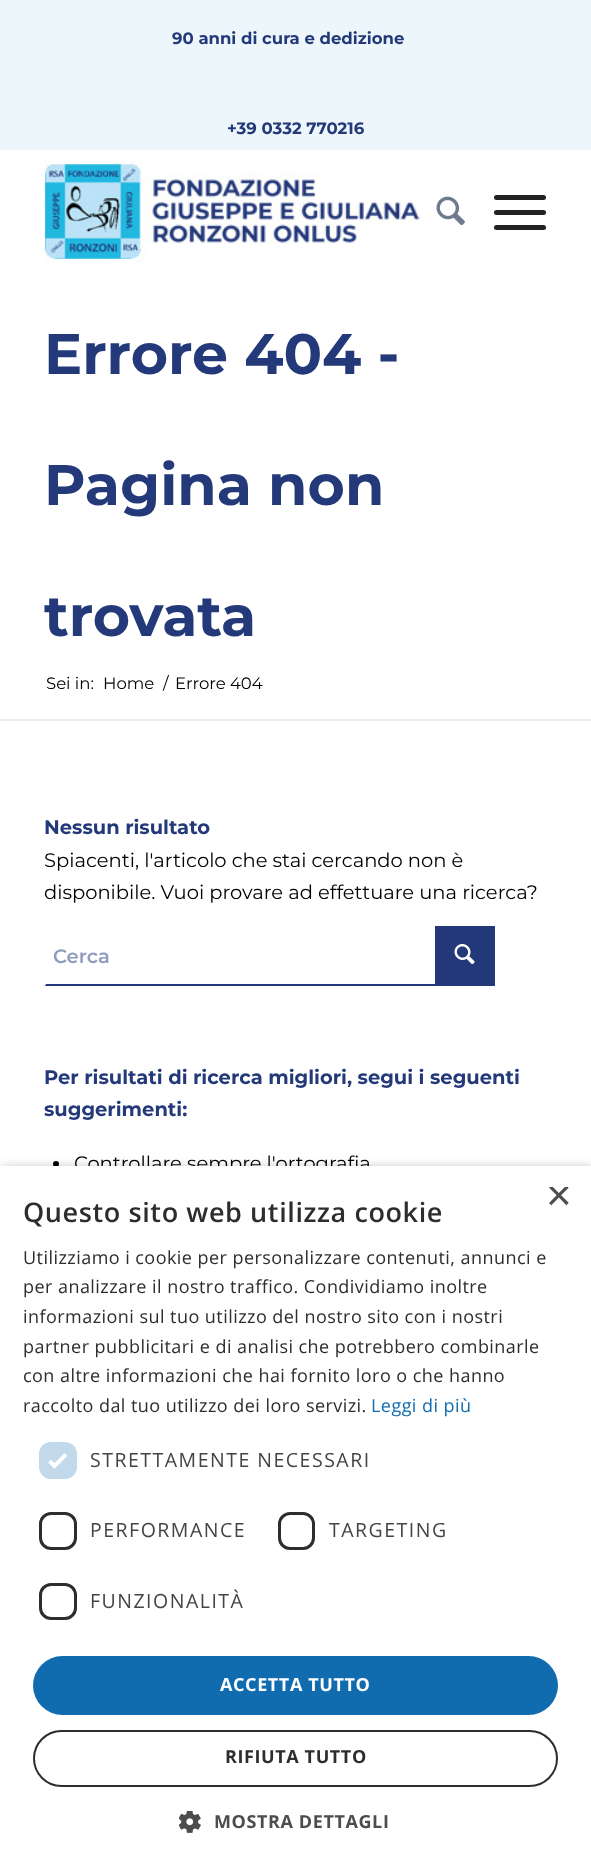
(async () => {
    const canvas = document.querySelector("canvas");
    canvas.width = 591;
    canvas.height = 1872;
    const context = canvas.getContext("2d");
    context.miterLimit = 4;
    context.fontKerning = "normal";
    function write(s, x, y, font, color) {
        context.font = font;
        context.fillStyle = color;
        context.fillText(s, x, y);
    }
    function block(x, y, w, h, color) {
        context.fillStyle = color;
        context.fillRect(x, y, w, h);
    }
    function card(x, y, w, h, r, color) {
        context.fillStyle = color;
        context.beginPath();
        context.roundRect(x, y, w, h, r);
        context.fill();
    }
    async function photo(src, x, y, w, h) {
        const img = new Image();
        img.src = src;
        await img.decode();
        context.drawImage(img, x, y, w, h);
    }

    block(0, 0, 591, 1872, "rgb(255, 255, 255)");
    block(0, 0, 591, 150, "rgb(237, 246, 250)");
    write("90 anni di cura e dedizione", 172, 44, "bold 16.5px Montserrat", "rgb(35, 57, 121)");
    write("+39 0332 770216", 227, 134, "bold 16.5px Montserrat", "rgb(35, 57, 121)");
    await photo("media/1.png", 45, 161, 378, 102);
    await photo("media/2.png", 436, 196, 29, 30);
    card(494, 210, 52, 5, 2.5, "rgb(34, 34, 34)");
    card(494, 195, 52, 5, 2.5, "rgb(34, 34, 34)");
    card(494, 225, 52, 5, 2.5, "rgb(34, 34, 34)");
    write("Errore 404 -", 44, 374, "bold 57px Montserrat", "rgb(35, 57, 121)");
    write("Pagina non", 44, 505, "bold 57px Montserrat", "rgb(35, 57, 121)");
    write("trovata", 44, 636, "bold 57px Montserrat", "rgb(35, 57, 121)");
    write("Sei in:", 46, 689, "100 16.5px Montserrat", "rgb(0, 0, 0)");
    write("Home", 103, 689, "100 16.5px Montserrat", "rgb(0, 0, 0)");
    write("/", 163, 689, "100 16.5px Montserrat", "rgb(0, 0, 0)");
    write("Errore 404", 175, 689, "100 16.5px Montserrat", "rgb(0, 0, 0)");
    block(0, 719, 591, 2, "rgb(235, 235, 235)");
    write("Nessun risultato", 44, 834, "bold 19.5px Montserrat", "rgb(35, 57, 121)");
    write("Spiacenti, l'articolo che stai cercando non è", 44, 867, "100 19.5px Montserrat", "rgb(0, 0, 0)");
    write("disponibile. Vuoi provare ad effettuare una ricerca?", 44, 899, "100 19.5px Montserrat", "rgb(0, 0, 0)");
    context.fillStyle = "rgb(35, 56, 121)";
    context.beginPath();
    context.moveTo(495, 986);
    context.lineTo(45, 986);
    context.lineTo(46, 984);
    context.lineTo(494, 984);
    context.closePath();
    context.fill();
    write("Cerca", 53, 963, "600 19.5px Montserrat", "rgb(145, 156, 188)");
    block(435, 926, 60, 60, "rgb(35, 56, 121)");
    await photo("media/3.png", 454, 944, 21, 21);
    write("Per risultati di ricerca migliori, segui i seguenti", 44, 1084, "bold 19.5px Montserrat", "rgb(35, 57, 121)");
    write("suggerimenti:", 44, 1116, "bold 19.5px Montserrat", "rgb(35, 57, 121)");
    context.fillStyle = "rgb(0, 0, 0)";
    context.beginPath();
    context.arc(56, 1164, 3, 0, Math.PI * 2);
    context.fill();
    write("Controllare sempre l'ortografia", 74, 1170, "100 19.5px Montserrat", "rgb(0, 0, 0)");
    context.fillStyle = "rgba(0, 0, 0, 0.35)";
    context.filter = "blur(6px)";
    context.beginPath();
    context.rect(2, 1169, 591, 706);
    context.fill();
    context.filter = "none";
    block(0, 1166, 591, 706, "rgb(255, 255, 255)");
    context.save();
    context.beginPath();
    context.rect(546, 1187, 23, 22);
    context.clip();
    write("×", 546, 1210, "44px Liberation Sans", "rgb(77, 77, 77)");
    context.restore();
    context.letterSpacing = "0.6px";
    write("Questo sito web utilizza cookie", 23, 1222, "600 27px Open Sans", "rgb(45, 45, 45)");
    context.letterSpacing = "0.45px";
    write("Utilizziamo i cookie per personalizzare contenuti, annunci e", 23, 1264, "18px Open Sans", "rgb(45, 45, 45)");
    write("per analizzare il nostro traffico. Condividiamo inoltre", 23, 1293, "18px Open Sans", "rgb(45, 45, 45)");
    write("informazioni sul tuo utilizzo del nostro sito con i nostri", 23, 1323, "18px Open Sans", "rgb(45, 45, 45)");
    write("partner pubblicitari e di analisi che potrebbero combinarle", 23, 1353, "18px Open Sans", "rgb(45, 45, 45)");
    write("con altre informazioni che hai fornito loro o che hanno", 23, 1382, "18px Open Sans", "rgb(45, 45, 45)");
    write("raccolto dal tuo utilizzo dei loro servizi.", 23, 1412, "18px Open Sans", "rgb(45, 45, 45)");
    write("Leggi di più", 371, 1412, "18px Open Sans", "rgb(17, 108, 175)");
    card(39, 1442, 38, 37, 12, "rgb(193, 217, 234)");
    context.beginPath();
    context.moveTo(49.5, 1461);
    context.lineTo(54.5, 1466);
    context.lineTo(66, 1454.5);
    context.strokeStyle = "rgb(255, 255, 255)";
    context.lineWidth = 3.9;
    context.stroke();
    context.letterSpacing = "1.5px";
    write("STRETTAMENTE NECESSARI", 90, 1467, "19.5px Open Sans", "rgb(68, 68, 68)");
    context.beginPath();
    context.roundRect(40.5, 1513.5, 35, 35, 10.5);
    context.strokeStyle = "rgb(45, 45, 45)";
    context.lineWidth = 3;
    context.stroke();
    write("PERFORMANCE", 90, 1537, "19.5px Open Sans", "rgb(68, 68, 68)");
    context.beginPath();
    context.roundRect(279.5, 1513.5, 34, 35, 10.5);
    context.stroke();
    write("TARGETING", 329, 1537, "19.5px Open Sans", "rgb(68, 68, 68)");
    context.beginPath();
    context.roundRect(40.5, 1584.5, 35, 34, 10.5);
    context.stroke();
    write("FUNZIONALITÀ", 90, 1608, "19.5px Open Sans", "rgb(68, 68, 68)");
    card(33, 1656, 525, 59, 29.5, "rgb(17, 108, 175)");
    context.letterSpacing = "0.6px";
    write("ACCETTA TUTTO", 220, 1691, "bold 18px Open Sans", "rgb(255, 255, 255)");
    context.beginPath();
    context.roundRect(34, 1731, 523, 55, 27.5);
    context.lineWidth = 2;
    context.stroke();
    write("RIFIUTA TUTTO", 225, 1763, "bold 18px Open Sans", "rgb(45, 45, 45)");
    await photo("media/4.png", 179, 1811, 22, 22);
    write("MOSTRA DETTAGLI", 214, 1828, "bold 18px Open Sans", "rgb(77, 77, 77)");
})();
